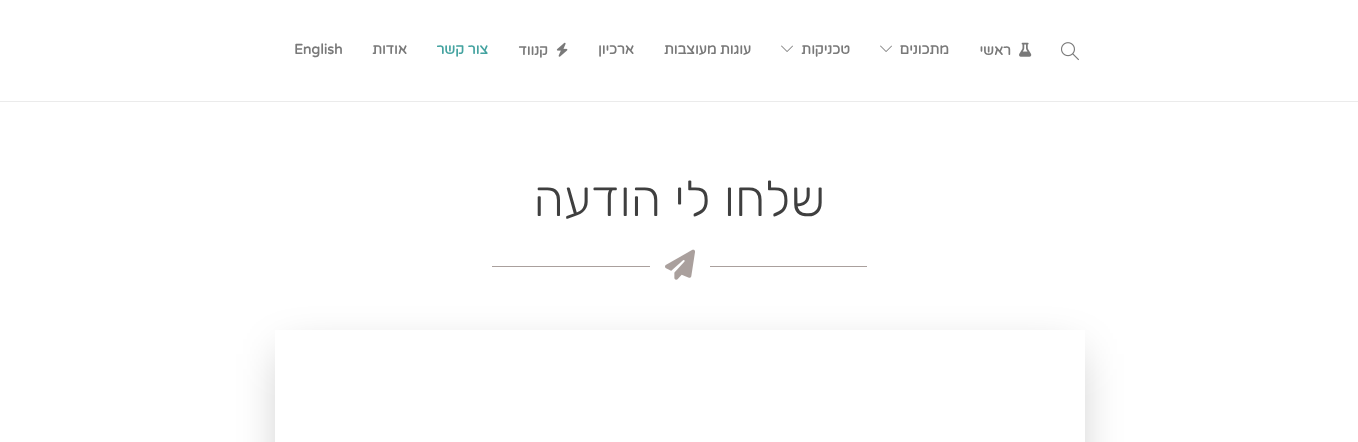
(async () => {
    const canvas = document.querySelector("canvas");
    canvas.width = 1358;
    canvas.height = 442;
    const context = canvas.getContext("2d");
    context.miterLimit = 4;
    context.fontKerning = "normal";
    function write(s, x, y, font, color) {
        context.font = font;
        context.fillStyle = color;
        context.fillText(s, x, y);
    }
    function block(x, y, w, h, color) {
        context.fillStyle = color;
        context.fillRect(x, y, w, h);
    }
    async function photo(src, x, y, w, h) {
        const img = new Image();
        img.src = src;
        await img.decode();
        context.drawImage(img, x, y, w, h);
    }

    block(0, 0, 1358, 442, "rgb(255, 255, 255)");
    block(0, 101, 1358, 1, "rgb(235, 235, 235)");
    await photo("media/1.png", 1061, 42, 18, 19);
    await photo("media/2.png", 1019, 42, 13, 15);
    context.direction = "rtl";
    write("ראשי", 1011, 55, "bold 14px Varela Round", "rgb(121, 121, 121)");
    write("מתכונים", 949, 54, "bold 14px Varela Round", "rgb(121, 121, 121)");
    await photo("media/3.png", 880, 45, 12, 7);
    write("טכניקות", 850, 54, "bold 14px Varela Round", "rgb(121, 121, 121)");
    await photo("media/3.png", 781, 45, 12, 7);
    write("עוגות מעוצבות", 751, 54, "bold 14px Varela Round", "rgb(121, 121, 121)");
    write("ארכיון", 634, 54, "bold 14px Varela Round", "rgb(121, 121, 121)");
    await photo("media/4.png", 556, 42, 12, 15);
    write("קנווד", 548, 55, "bold 14px Varela Round", "rgb(121, 121, 121)");
    write("צור קשר", 488, 54, "bold 14px Varela Round", "rgb(68, 163, 160)");
    write("אודות", 407, 54, "bold 14px Varela Round", "rgb(121, 121, 121)");
    context.direction = "ltr";
    write("English", 294, 54, "bold 14px Varela Round", "rgb(121, 121, 121)");
    context.direction = "rtl";
    write("שלחו לי הודעה", 825, 216, "300 50px Rubik", "rgb(63, 63, 63)");
    block(710, 266, 157, 1, "rgb(170, 160, 157)");
    await photo("media/5.png", 665, 249, 30, 31);
    block(492, 266, 158, 1, "rgb(170, 160, 157)");
    context.save();
    context.beginPath();
    context.moveTo(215, 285);
    context.lineTo(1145, 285);
    context.lineTo(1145, 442);
    context.lineTo(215, 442);
    context.closePath();
    context.moveTo(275, 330);
    context.lineTo(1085, 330);
    context.lineTo(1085, 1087);
    context.lineTo(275, 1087);
    context.closePath();
    context.clip("evenodd");
    context.fillStyle = "rgba(0, 0, 0, 0.25)";
    context.filter = "blur(22.5px)";
    context.beginPath();
    context.rect(284, 354, 792, 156);
    context.fill();
    context.filter = "none";
    context.restore();
})();
